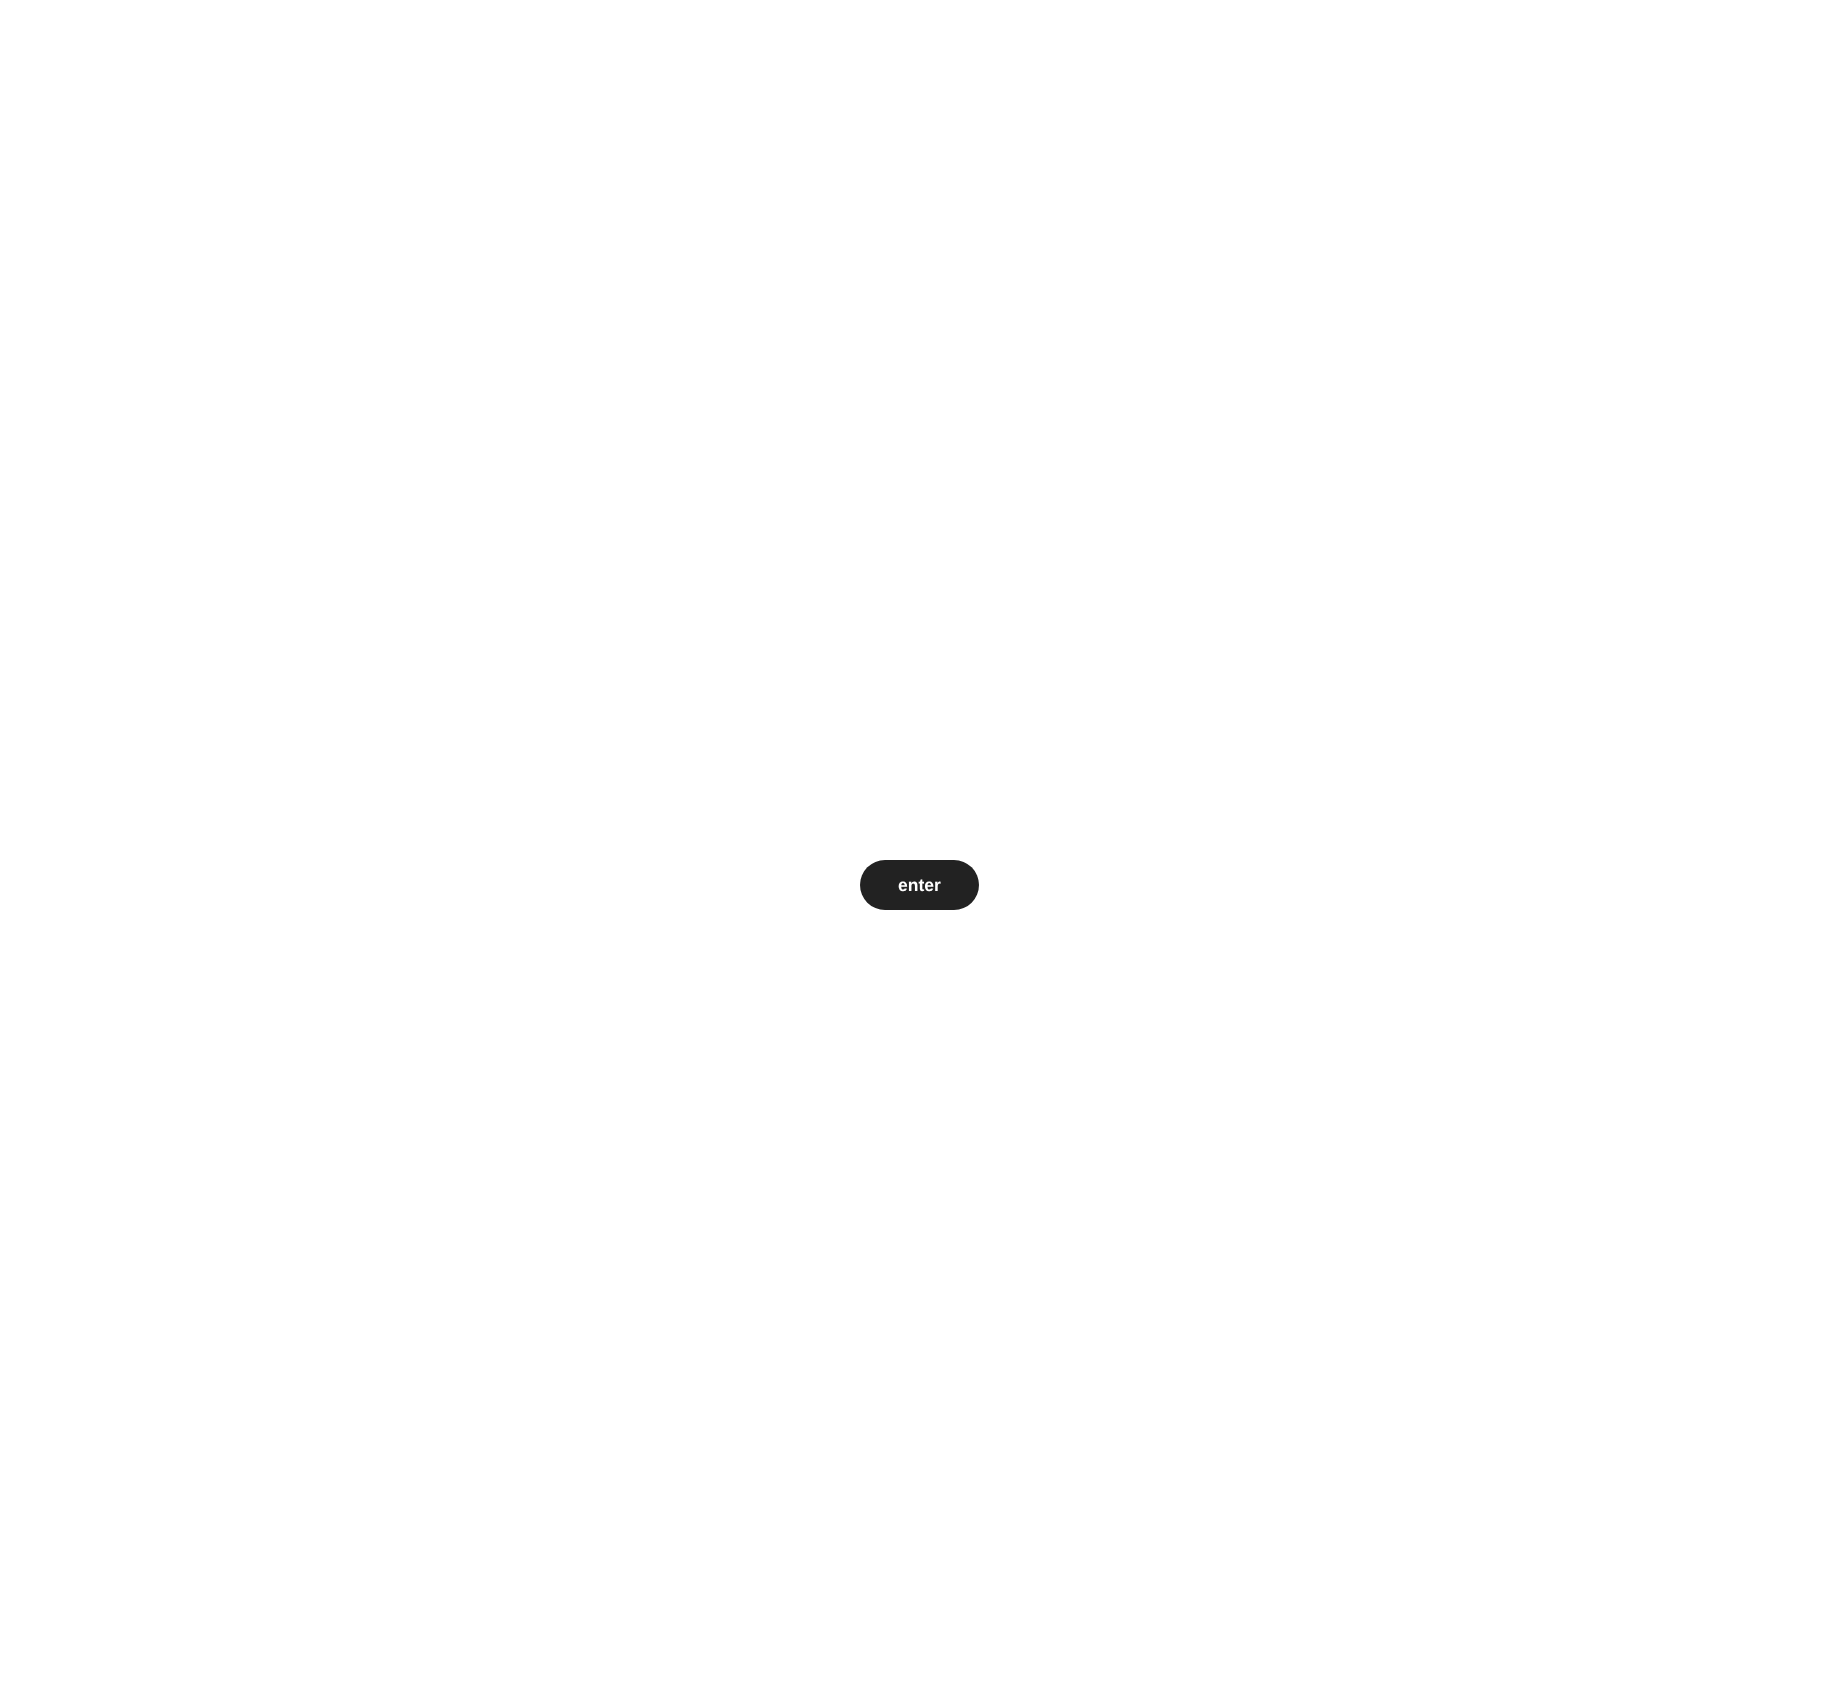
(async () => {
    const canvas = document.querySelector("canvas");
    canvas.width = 1838;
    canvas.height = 1689;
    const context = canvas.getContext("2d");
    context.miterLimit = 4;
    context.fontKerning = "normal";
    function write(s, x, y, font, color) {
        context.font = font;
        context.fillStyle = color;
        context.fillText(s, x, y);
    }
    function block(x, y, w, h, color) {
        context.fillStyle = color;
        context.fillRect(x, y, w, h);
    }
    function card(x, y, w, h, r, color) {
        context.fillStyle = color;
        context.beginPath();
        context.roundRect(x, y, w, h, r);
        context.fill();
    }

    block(0, 0, 1838, 1689, "rgb(255, 255, 255)");
    card(860, 860, 119, 50, 25, "rgb(34, 34, 34)");
    write("enter", 898, 891, "bold 17.5px Liberation Sans", "rgb(255, 255, 255)");
})();
